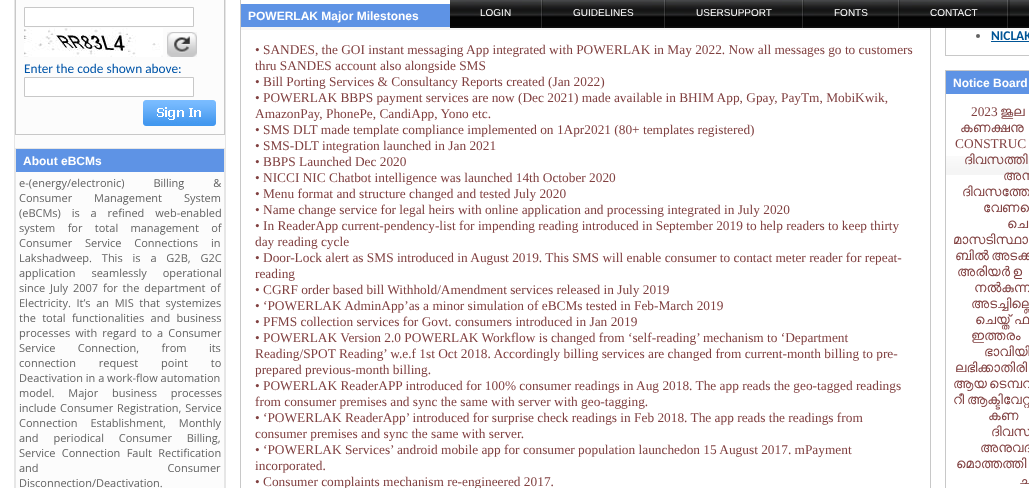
(async () => {
    const canvas = document.querySelector("canvas");
    canvas.width = 1029;
    canvas.height = 488;
    const context = canvas.getContext("2d");
    context.miterLimit = 4;
    context.fontKerning = "normal";
    function write(s, x, y, font, color) {
        context.font = font;
        context.fillStyle = color;
        context.fillText(s, x, y);
    }
    function block(x, y, w, h, color) {
        context.fillStyle = color;
        context.fillRect(x, y, w, h);
    }
    async function photo(src, x, y, w, h) {
        const img = new Image();
        img.src = src;
        await img.decode();
        context.drawImage(img, x, y, w, h);
    }

    block(0, 0, 1029, 488, "rgb(255, 255, 255)");
    await photo("media/5.png", 241, 27, 689, 3);
    context.strokeStyle = "rgb(200, 200, 200)";
    context.strokeRect(240.5, -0.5, 690, 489);
    await photo("media/6.png", 946, 28, 83, 2);
    context.strokeRect(945.5, -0.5, 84, 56);
    await photo("media/1.png", 450, 0, 579, 28);
    block(542, 0, 1, 28, "rgba(0, 0, 0, 0.22)");
    block(541, 0, 1, 28, "rgba(255, 255, 255, 0.15)");
    write("LOGIN", 480, 16, "10px Liberation Sans", "rgb(255, 255, 255)");
    block(665, 0, 1, 28, "rgba(0, 0, 0, 0.22)");
    block(664, 0, 1, 28, "rgba(255, 255, 255, 0.15)");
    write("GUIDELINES", 573, 16, "10px Liberation Sans", "rgb(255, 255, 255)");
    block(803, 0, 1, 28, "rgba(0, 0, 0, 0.22)");
    block(802, 0, 1, 28, "rgba(255, 255, 255, 0.15)");
    write("USERSUPPORT", 696, 16, "10px Liberation Sans", "rgb(255, 255, 255)");
    block(899, 0, 1, 28, "rgba(0, 0, 0, 0.22)");
    block(898, 0, 1, 28, "rgba(255, 255, 255, 0.15)");
    write("FONTS", 834, 16, "10px Liberation Sans", "rgb(255, 255, 255)");
    block(1008, 0, 1, 28, "rgba(0, 0, 0, 0.22)");
    block(1007, 0, 1, 28, "rgba(255, 255, 255, 0.15)");
    write("CONTACT", 930, 16, "10px Liberation Sans", "rgb(255, 255, 255)");
    block(1009, 0, 1, 28, "rgba(0, 0, 0, 0.22)");
    context.fillStyle = "rgb(252, 252, 252)";
    context.beginPath();
    context.rect(14.5, -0.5, 211, 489);
    context.fill();
    context.strokeStyle = "rgb(230, 230, 230)";
    context.stroke();
    context.strokeStyle = "rgb(200, 200, 200)";
    context.strokeRect(15.5, -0.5, 209, 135);
    context.fillStyle = "rgb(255, 255, 255)";
    context.beginPath();
    context.rect(24.5, 7.5, 169, 19);
    context.fill();
    context.stroke();
    await photo("media/2.png", 24, 28, 139, 29);
    await photo("media/3.png", 167, 32, 30, 25);
    write("Enter the code shown above:", 24, 73, "13.35px Carlito", "rgb(0, 85, 168)");
    context.fillStyle = "rgb(255, 255, 255)";
    context.beginPath();
    context.rect(24.5, 77.5, 169, 19);
    context.fill();
    context.stroke();
    await photo("media/4.png", 143, 100, 73, 26);
    context.strokeStyle = "rgb(230, 230, 230)";
    context.strokeRect(15.5, 148.5, 209, 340);
    block(16, 149, 208, 23, "rgb(94, 147, 229)");
    write("About eBCMs", 23, 165, "bold 12px Liberation Sans", "rgb(255, 255, 255)");
    context.wordSpacing = "26px";
    write("e-(energy/electronic) Billing &", 19, 187, "11px Open Sans", "rgb(98, 98, 98)");
    context.wordSpacing = "19px";
    write("Consumer Management System", 19, 202, "11px Open Sans", "rgb(98, 98, 98)");
    context.wordSpacing = "8px";
    write("(eBCMs) is a refined web-enabled", 19, 217, "11px Open Sans", "rgb(98, 98, 98)");
    context.wordSpacing = "9.5px";
    write("system for total management of", 19, 232, "11px Open Sans", "rgb(98, 98, 98)");
    context.wordSpacing = "10px";
    write("Consumer Service Connections in", 19, 247, "11px Open Sans", "rgb(98, 98, 98)");
    context.wordSpacing = "7px";
    write("Lakshadweep. This is a G2B, G2C", 19, 262, "11px Open Sans", "rgb(98, 98, 98)");
    context.wordSpacing = "13px";
    write("application seamlessly operational", 19, 277, "11px Open Sans", "rgb(98, 98, 98)");
    context.wordSpacing = "2px";
    write("since July 2007 for the department of", 19, 292, "11px Open Sans", "rgb(98, 98, 98)");
    context.wordSpacing = "2.75px";
    write("Electricity. It’s an MIS that systemizes", 19, 307, "11px Open Sans", "rgb(98, 98, 98)");
    context.wordSpacing = "3.5px";
    write("the total functionalities and business", 19, 322, "11px Open Sans", "rgb(98, 98, 98)");
    context.wordSpacing = "2.25px";
    write("processes with regard to a Consumer", 19, 337, "11px Open Sans", "rgb(98, 98, 98)");
    context.wordSpacing = "19.5px";
    write("Service Connection, from its", 19, 352, "11px Open Sans", "rgb(98, 98, 98)");
    context.wordSpacing = "20px";
    write("connection request point to", 19, 367, "11px Open Sans", "rgb(98, 98, 98)");
    context.wordSpacing = "0px";
    write("Deactivation in a work-flow automation", 19, 382, "11px Open Sans", "rgb(98, 98, 98)");
    context.wordSpacing = "11px";
    write("model. Major business processes", 19, 397, "11px Open Sans", "rgb(98, 98, 98)");
    context.wordSpacing = "1px";
    write("include Consumer Registration, Service", 19, 412, "11px Open Sans", "rgb(98, 98, 98)");
    context.wordSpacing = "10px";
    write("Connection Establishment, Monthly", 19, 427, "11px Open Sans", "rgb(98, 98, 98)");
    context.wordSpacing = "12px";
    write("and periodical Consumer Billing,", 19, 442, "11px Open Sans", "rgb(98, 98, 98)");
    context.wordSpacing = "3.5px";
    write("Service Connection Fault Rectification", 19, 457, "11px Open Sans", "rgb(98, 98, 98)");
    context.wordSpacing = "126px";
    write("and Consumer", 19, 472, "11px Open Sans", "rgb(98, 98, 98)");
    context.wordSpacing = "0px";
    write("Disconnection/Deactivation.", 19, 487, "11px Open Sans", "rgb(98, 98, 98)");
    block(241, 4, 209, 23, "rgb(94, 147, 229)");
    write("POWERLAK Major Milestones", 248, 20, "bold 12px Liberation Sans", "rgb(255, 255, 255)");
    write("• SANDES, the GOI instant messaging App integrated with POWERLAK in May 2022. Now all messages go to customers", 255, 54, "13.35px Liberation Serif", "rgb(128, 64, 64)");
    write("thru SANDES account also alongside SMS", 255, 70, "13.35px Liberation Serif", "rgb(128, 64, 64)");
    write("• Bill Porting Services & Consultancy Reports created (Jan 2022)", 255, 86, "13.35px Liberation Serif", "rgb(128, 64, 64)");
    write("• POWERLAK BBPS payment services are now (Dec 2021) made available in BHIM App, Gpay, PayTm, MobiKwik,", 255, 102, "13.35px Liberation Serif", "rgb(128, 64, 64)");
    write("AmazonPay, PhonePe, CandiApp, Yono etc.", 255, 118, "13.35px Liberation Serif", "rgb(128, 64, 64)");
    write("• SMS DLT made template compliance implemented on 1Apr2021 (80+ templates registered)", 255, 134, "13.35px Liberation Serif", "rgb(128, 64, 64)");
    write("• SMS-DLT integration launched in Jan 2021", 255, 150, "13.35px Liberation Serif", "rgb(128, 64, 64)");
    write("• BBPS Launched Dec 2020", 255, 166, "13.35px Liberation Serif", "rgb(128, 64, 64)");
    write("• NICCI NIC Chatbot intelligence was launched 14th October 2020", 255, 182, "13.35px Liberation Serif", "rgb(128, 64, 64)");
    write("• Menu format and structure changed and tested July 2020", 255, 198, "13.35px Liberation Serif", "rgb(128, 64, 64)");
    write("• Name change service for legal heirs with online application and processing integrated in July 2020", 255, 214, "13.35px Liberation Serif", "rgb(128, 64, 64)");
    write("• In ReaderApp current-pendency-list for impending reading introduced in September 2019 to help readers to keep thirty", 255, 230, "13.35px Liberation Serif", "rgb(128, 64, 64)");
    write("day reading cycle", 255, 246, "13.35px Liberation Serif", "rgb(128, 64, 64)");
    write("• Door-Lock alert as SMS introduced in August 2019. This SMS will enable consumer to contact meter reader for repeat-", 255, 262, "13.35px Liberation Serif", "rgb(128, 64, 64)");
    write("reading", 255, 278, "13.35px Liberation Serif", "rgb(128, 64, 64)");
    write("• CGRF order based bill Withhold/Amendment services released in July 2019", 255, 294, "13.35px Liberation Serif", "rgb(128, 64, 64)");
    write("• ‘POWERLAK AdminApp’as a minor simulation of eBCMs tested in Feb-March 2019", 255, 310, "13.35px Liberation Serif", "rgb(128, 64, 64)");
    write("• PFMS collection services for Govt. consumers introduced in Jan 2019", 255, 326, "13.35px Liberation Serif", "rgb(128, 64, 64)");
    write("• POWERLAK Version 2.0 POWERLAK Workflow is changed from ‘self-reading’ mechanism to ‘Department", 255, 342, "13.35px Liberation Serif", "rgb(128, 64, 64)");
    write("Reading/SPOT Reading’ w.e.f 1st Oct 2018. Accordingly billing services are changed from current-month billing to pre-", 255, 358, "13.35px Liberation Serif", "rgb(128, 64, 64)");
    write("prepared previous-month billing.", 255, 374, "13.35px Liberation Serif", "rgb(128, 64, 64)");
    write("• POWERLAK ReaderAPP introduced for 100% consumer readings in Aug 2018. The app reads the geo-tagged readings", 255, 390, "13.35px Liberation Serif", "rgb(128, 64, 64)");
    write("from consumer premises and sync the same with server with geo-tagging.", 255, 406, "13.35px Liberation Serif", "rgb(128, 64, 64)");
    write("• ‘POWERLAK ReaderApp’ introduced for surprise check readings in Feb 2018. The app reads the readings from", 255, 422, "13.35px Liberation Serif", "rgb(128, 64, 64)");
    write("consumer premises and sync the same with server.", 255, 438, "13.35px Liberation Serif", "rgb(128, 64, 64)");
    write("• ‘POWERLAK Services’ android mobile app for consumer population launchedon 15 August 2017. mPayment", 255, 454, "13.35px Liberation Serif", "rgb(128, 64, 64)");
    write("incorporated.", 255, 470, "13.35px Liberation Serif", "rgb(128, 64, 64)");
    write("• Consumer complaints mechanism re-engineered 2017.", 255, 486, "13.35px Liberation Serif", "rgb(128, 64, 64)");
    context.fillStyle = "rgb(98, 98, 98)";
    context.beginPath();
    context.arc(978, 36, 2, 0, Math.PI * 2);
    context.fill();
    write("NICLAK", 991, 40, "bold 13.35px Carlito", "rgb(0, 85, 150)");
    block(991, 41, 38, 1, "rgb(0, 85, 150)");
    await photo("media/7.png", 946, 156, 83, 19);
    context.strokeStyle = "rgb(200, 200, 200)";
    context.strokeRect(945.5, 70.5, 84, 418);
    block(946, 71, 83, 23, "rgb(94, 147, 229)");
    write("Notice Board", 953, 87, "bold 12px Liberation Sans", "rgb(255, 255, 255)");
    write("2023", 971, 116, "13.35px Liberation Serif", "rgb(128, 64, 64)");
    context.wordSpacing = "-1px";
    write("ജൂല", 1000, 116, "13.35px FreeSans", "rgb(128, 64, 64)");
    context.wordSpacing = "0px";
    write("കണക്ഷനു", 960, 132, "13.35px FreeSans", "rgb(128, 64, 64)");
    write("CONSTRUC", 955, 148, "13.35px Liberation Serif", "rgb(128, 64, 64)");
    context.wordSpacing = "-1px";
    write("ദിവസത്തി", 964, 164, "13.35px FreeSans", "rgb(128, 64, 64)");
    context.wordSpacing = "0px";
    write("അന", 1003, 180, "13.35px FreeSans", "rgb(128, 64, 64)");
    context.wordSpacing = "-1px";
    write("ദിവസത്തേ", 962, 196, "13.35px FreeSans", "rgb(128, 64, 64)");
    context.wordSpacing = "0px";
    write("വേണമെ", 983, 212, "13.35px FreeSans", "rgb(128, 64, 64)");
    write("ചെ", 1007, 228, "13.35px FreeSans", "rgb(128, 64, 64)");
    context.wordSpacing = "-1px";
    write("മാസടിസ്ഥാ", 953, 244, "13.35px FreeSans", "rgb(128, 64, 64)");
    write("ബില്‍ അടക്കാ", 955, 260, "13.35px FreeSans", "rgb(128, 64, 64)");
    write("അരിയര്‍ ഉ", 957, 276, "13.35px FreeSans", "rgb(128, 64, 64)");
    write("നല്‍കുന്ന", 974, 292, "13.35px FreeSans", "rgb(128, 64, 64)");
    write("അടച്ചില്ലെ", 971, 308, "13.35px FreeSans", "rgb(128, 64, 64)");
    context.wordSpacing = "0px";
    write("ചെയ്ത്", 975, 324, "13.35px FreeSans", "rgb(128, 64, 64)");
    context.wordSpacing = "-1px";
    write("ഫ", 1014, 324, "13.35px FreeSans", "rgb(128, 64, 64)");
    write("ഇത്തരം", 971, 340, "13.35px FreeSans", "rgb(128, 64, 64)");
    write("ഭാവിയി", 984, 356, "13.35px FreeSans", "rgb(128, 64, 64)");
    write("ലഭിക്കാതിരി", 955, 372, "13.35px FreeSans", "rgb(128, 64, 64)");
    context.wordSpacing = "0px";
    write("ആയ", 953, 388, "13.35px FreeSans", "rgb(128, 64, 64)");
    write("ടെമ്പറ", 989, 388, "13.35px FreeSans", "rgb(128, 64, 64)");
    write("റീ", 953, 404, "13.35px FreeSans", "rgb(128, 64, 64)");
    write("ആക്ടിവേറ്റ്", 967, 404, "13.35px FreeSans", "rgb(128, 64, 64)");
    context.wordSpacing = "-1px";
    write("കണ", 988, 420, "13.35px FreeSans", "rgb(128, 64, 64)");
    context.wordSpacing = "0px";
    write("ദിവസ", 991, 436, "13.35px FreeSans", "rgb(128, 64, 64)");
    write("അനുവദ", 980, 452, "13.35px FreeSans", "rgb(128, 64, 64)");
    write("മൊത്തത്തി", 956, 468, "13.35px FreeSans", "rgb(128, 64, 64)");
    context.wordSpacing = "-1px";
    write("ച", 1019, 484, "13.35px FreeSans", "rgb(128, 64, 64)");
})();
